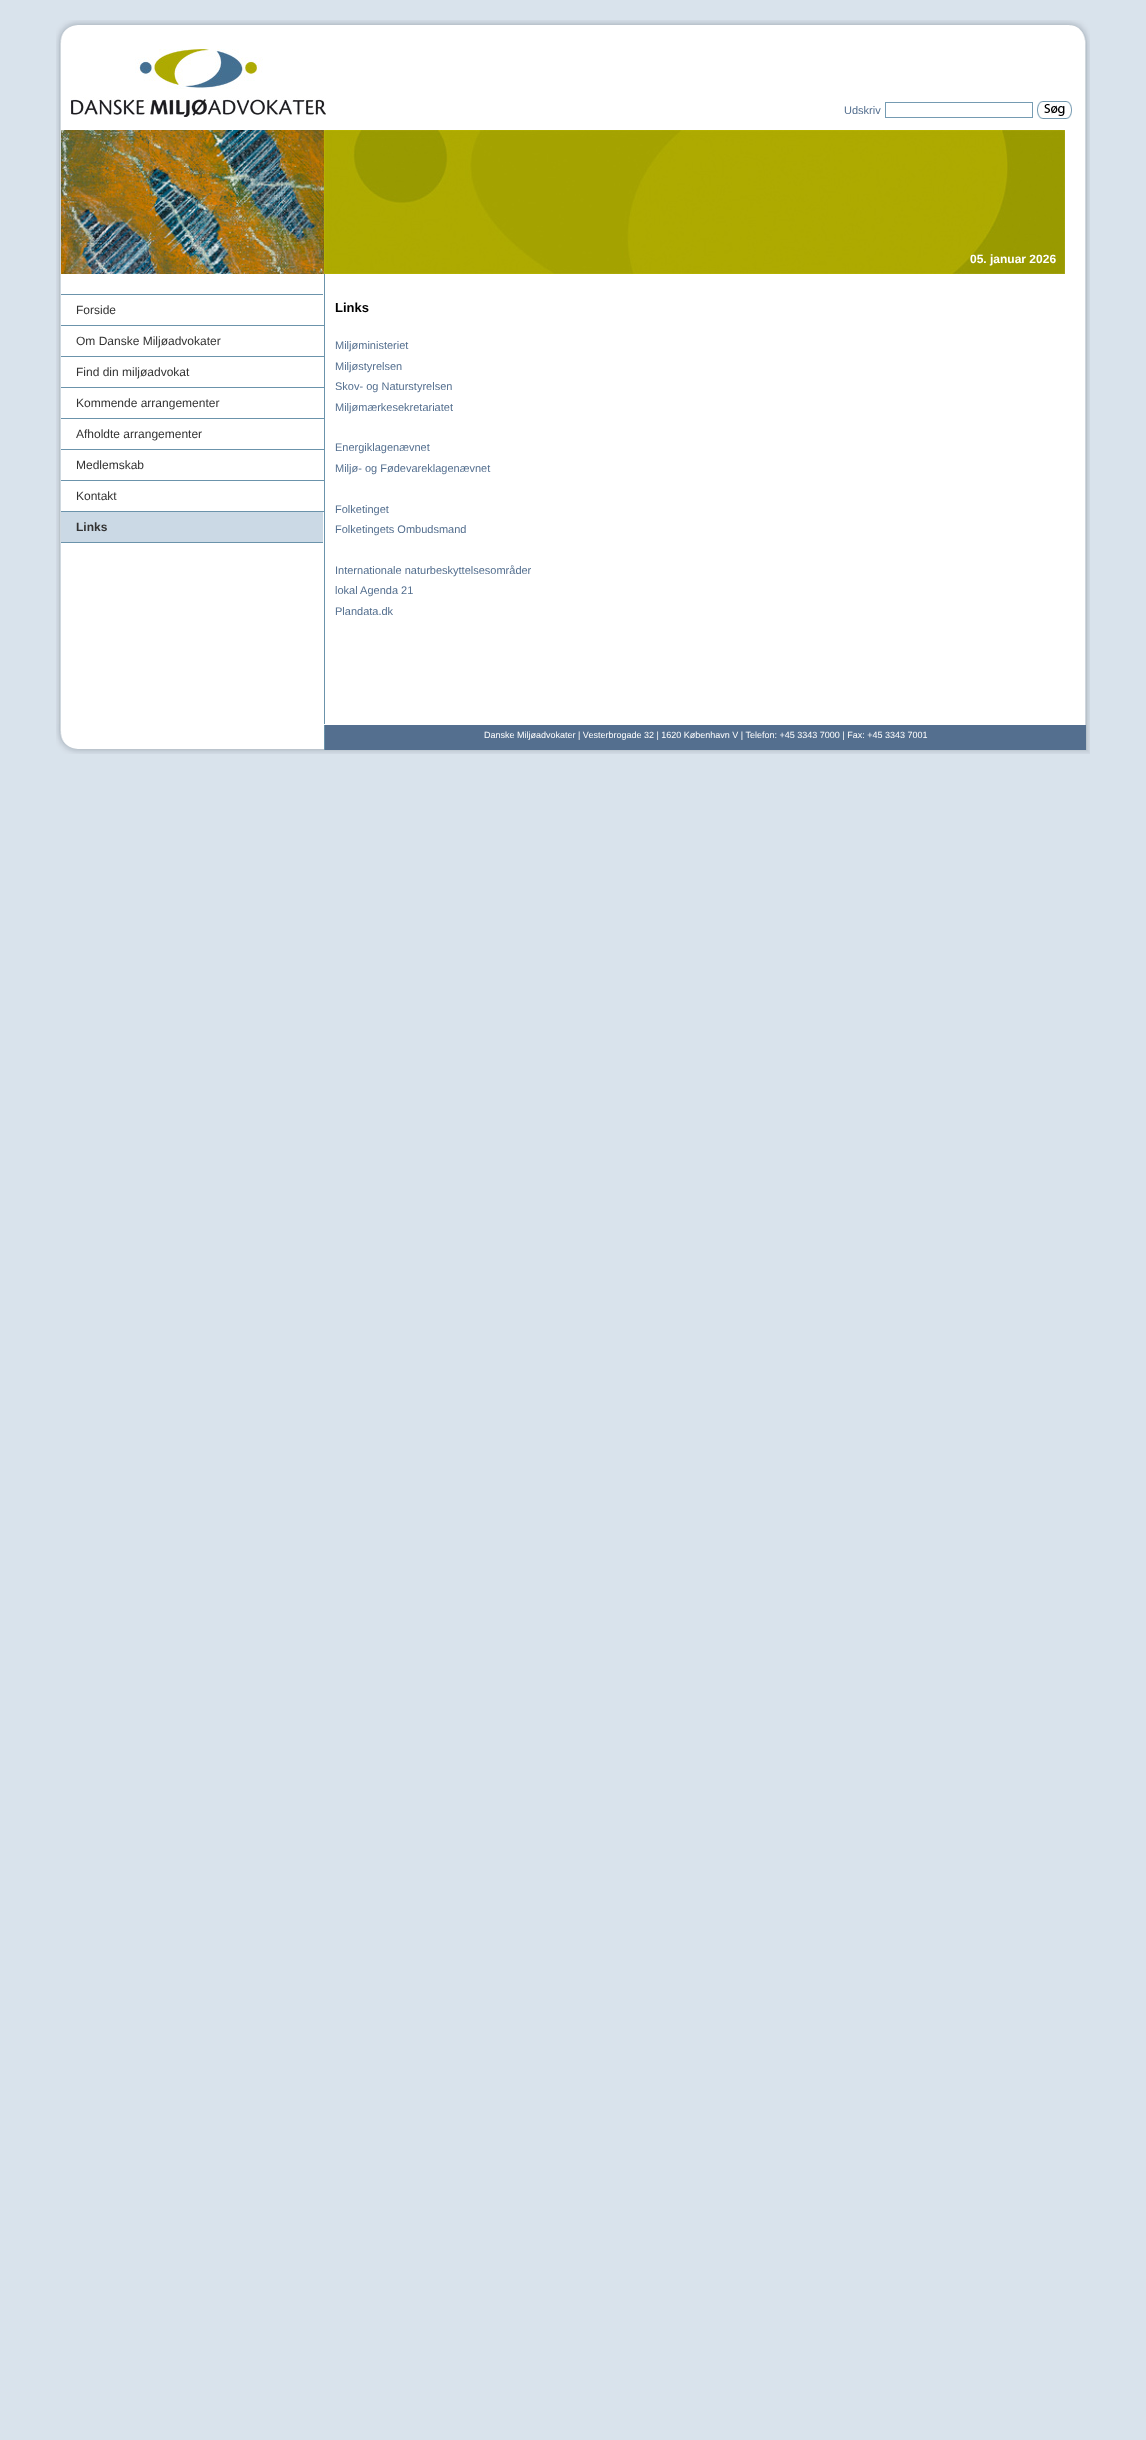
(async () => {
    const canvas = document.querySelector("canvas");
    canvas.width = 1146;
    canvas.height = 2440;
    const context = canvas.getContext("2d");
    context.miterLimit = 4;
    context.fontKerning = "normal";
    function write(s, x, y, font, color) {
        context.font = font;
        context.fillStyle = color;
        context.fillText(s, x, y);
    }
    function block(x, y, w, h, color) {
        context.fillStyle = color;
        context.fillRect(x, y, w, h);
    }
    async function photo(src, x, y, w, h) {
        const img = new Image();
        img.src = src;
        await img.decode();
        context.drawImage(img, x, y, w, h);
    }

    block(0, 0, 1146, 2440, "rgb(217, 227, 236)");
    await photo("media/1.png", 56, 20, 1034, 110);
    await photo("media/2.png", 71, 49, 255, 68);
    write("Udskriv", 844, 114, "11px Liberation Sans", "rgb(84, 111, 143)");
    context.strokeStyle = "rgb(117, 155, 178)";
    context.strokeRect(885.5, 102.5, 147, 15);
    await photo("media/3.png", 1037, 101, 35, 18);
    block(61, 130, 1024, 594, "rgb(255, 255, 255)");
    await photo("media/6.png", 324, 130, 741, 144);
    write("05. januar 2026", 970, 263, "bold 12px Liberation Sans", "rgb(255, 255, 255)");
    await photo("media/4.png", 56, 130, 5, 594);
    await photo("media/5.png", 61, 130, 263, 144);
    block(61, 294, 262, 1, "rgb(107, 147, 171)");
    block(324, 274, 1, 450, "rgb(107, 147, 171)");
    block(61, 325, 264, 1, "rgb(107, 147, 171)");
    write("Forside", 76, 314, "12px Liberation Sans", "rgb(51, 51, 51)");
    block(61, 356, 264, 1, "rgb(107, 147, 171)");
    write("Om Danske Miljøadvokater", 76, 345, "12px Liberation Sans", "rgb(51, 51, 51)");
    block(61, 387, 264, 1, "rgb(107, 147, 171)");
    write("Find din miljøadvokat", 76, 376, "12px Liberation Sans", "rgb(51, 51, 51)");
    block(61, 418, 264, 1, "rgb(107, 147, 171)");
    write("Kommende arrangementer", 76, 407, "12px Liberation Sans", "rgb(51, 51, 51)");
    block(61, 449, 264, 1, "rgb(107, 147, 171)");
    write("Afholdte arrangementer", 76, 438, "12px Liberation Sans", "rgb(51, 51, 51)");
    block(61, 480, 264, 1, "rgb(107, 147, 171)");
    write("Medlemskab", 76, 469, "12px Liberation Sans", "rgb(51, 51, 51)");
    block(61, 511, 264, 1, "rgb(107, 147, 171)");
    write("Kontakt", 76, 500, "12px Liberation Sans", "rgb(51, 51, 51)");
    block(61, 512, 262, 30, "rgb(203, 217, 229)");
    block(61, 542, 262, 1, "rgb(107, 147, 171)");
    write("Links", 76, 531, "bold 12px Liberation Sans", "rgb(51, 51, 51)");
    write("Links", 335, 312, "bold 13px Liberation Sans", "rgb(0, 0, 0)");
    write("Miljøministeriet", 335, 349, "11px Liberation Sans", "rgb(84, 111, 143)");
    write("Miljøstyrelsen", 335, 370, "11px Liberation Sans", "rgb(84, 111, 143)");
    write("Skov- og Naturstyrelsen", 335, 390, "11px Liberation Sans", "rgb(84, 111, 143)");
    write("Miljømærkesekretariatet", 335, 411, "11px Liberation Sans", "rgb(84, 111, 143)");
    write("Energiklagenævnet", 335, 451, "11px Liberation Sans", "rgb(84, 111, 143)");
    write("Miljø- og Fødevareklagenævnet", 335, 472, "11px Liberation Sans", "rgb(84, 111, 143)");
    write("Folketinget", 335, 513, "11px Liberation Sans", "rgb(84, 111, 143)");
    write("Folketingets Ombudsmand", 335, 533, "11px Liberation Sans", "rgb(84, 111, 143)");
    write("Internationale naturbeskyttelsesområder", 335, 574, "11px Liberation Sans", "rgb(84, 111, 143)");
    write("lokal Agenda 21", 335, 594, "11px Liberation Sans", "rgb(84, 111, 143)");
    write("Plandata.dk", 335, 615, "11px Liberation Sans", "rgb(84, 111, 143)");
    await photo("media/7.png", 1085, 130, 5, 594);
    await photo("media/8.png", 56, 724, 1034, 30);
    block(325, 725, 761, 25, "rgb(84, 111, 143)");
    block(324, 725, 1, 25, "rgb(107, 147, 171)");
    write("Danske Miljøadvokater | Vesterbrogade 32 | 1620 København V | Telefon: +45 3343 7000 | Fax: +45 3343 7001", 484, 738, "9px Liberation Sans", "rgb(255, 255, 255)");
})();
